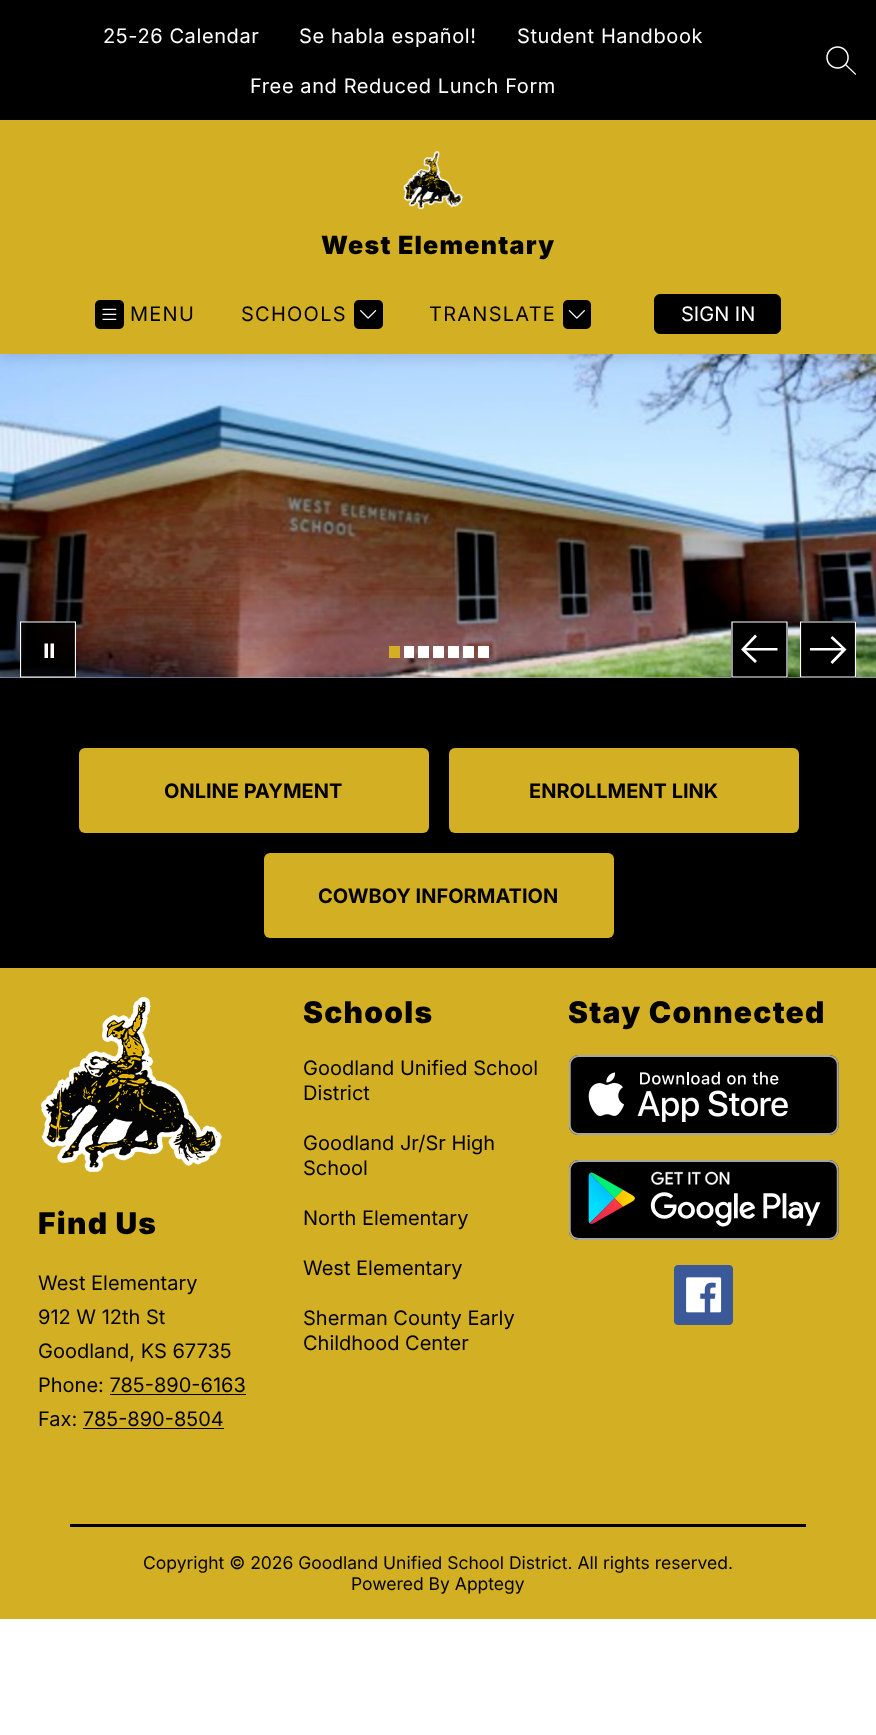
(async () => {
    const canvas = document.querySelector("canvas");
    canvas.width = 876;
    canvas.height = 1735;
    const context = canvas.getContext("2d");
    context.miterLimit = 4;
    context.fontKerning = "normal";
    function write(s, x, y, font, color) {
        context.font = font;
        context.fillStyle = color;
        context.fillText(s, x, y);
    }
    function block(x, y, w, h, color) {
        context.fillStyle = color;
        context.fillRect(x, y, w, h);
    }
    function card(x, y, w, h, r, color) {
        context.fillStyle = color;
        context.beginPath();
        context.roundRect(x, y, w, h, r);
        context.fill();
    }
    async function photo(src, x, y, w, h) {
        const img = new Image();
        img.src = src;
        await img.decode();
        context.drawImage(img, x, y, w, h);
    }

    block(0, 0, 876, 1735, "rgb(255, 255, 255)");
    block(0, 677, 876, 1, "rgb(170, 182, 223)");
    await photo("media/6.png", 0, 354, 876, 324);
    context.fillStyle = "rgba(0, 0, 0, 0.1)";
    context.filter = "blur(6px)";
    context.beginPath();
    context.rect(0, 5, 876, 354);
    context.fill();
    context.filter = "none";
    block(0, 120, 876, 234, "rgb(211, 175, 35)");
    block(0, 0, 876, 120, "rgb(0, 0, 0)");
    context.letterSpacing = "0.6px";
    write("25-26 Calendar", 103, 43, "20px Inter", "rgb(255, 255, 255)");
    write("Se habla español!", 299, 43, "20px Inter", "rgb(255, 255, 255)");
    write("Student Handbook", 517, 43, "20px Inter", "rgb(255, 255, 255)");
    write("Free and Reduced Lunch Form", 250, 93, "20px Inter", "rgb(255, 255, 255)");
    await photo("media/1.png", 826, 46, 30, 29);
    await photo("media/2.png", 403, 150, 60, 60);
    context.letterSpacing = "1.25px";
    write("West Elementary", 321, 254, "900 25px Inter", "rgb(0, 0, 0)");
    await photo("media/3.png", 95, 300, 29, 29);
    write("MENU", 130, 321, "20px Inter", "rgb(0, 0, 0)");
    write("SCHOOLS", 241, 321, "20px Inter", "rgb(0, 0, 0)");
    await photo("media/4.png", 354, 300, 29, 29);
    write("TRANSLATE", 429, 321, "20px Inter", "rgb(0, 0, 0)");
    await photo("media/5.png", 563, 300, 28, 29);
    context.beginPath();
    context.roundRect(654.5, 294.5, 126, 39, 5.5);
    context.fill();
    context.strokeStyle = "rgb(0, 0, 0)";
    context.stroke();
    context.letterSpacing = "0px";
    write("SIGN IN", 681, 321, "20px Inter", "rgb(255, 255, 255)");
    block(0, 678, 876, 290, "rgb(0, 0, 0)");
    block(21, 622, 54, 55, "rgba(0, 0, 0, 0.9)");
    context.save();
    context.beginPath();
    context.rect(20, 621, 56, 57);
    context.clip();
    context.beginPath();
    context.moveTo(20.5, 622);
    context.lineTo(75.5, 622);
    context.lineTo(75.5, 677);
    context.lineTo(20.5, 677);
    context.closePath();
    context.strokeStyle = "rgb(255, 255, 255)";
    context.lineWidth = 1.2;
    context.stroke();
    context.restore();
    context.fillStyle = "rgb(255, 255, 255)";
    context.beginPath();
    context.moveTo(48, 643.5);
    context.lineTo(44.5, 643.5);
    context.lineTo(44.5, 658);
    context.lineTo(48, 658);
    context.closePath();
    context.moveTo(54, 643.5);
    context.lineTo(50.5, 643.5);
    context.lineTo(50.5, 658);
    context.lineTo(54, 658);
    context.closePath();
    context.fill("evenodd");
    block(389, 646, 11, 12, "rgb(211, 175, 35)");
    block(404, 646, 10, 12, "rgb(255, 255, 255)");
    block(418, 646, 11, 12, "rgb(255, 255, 255)");
    block(433, 646, 11, 12, "rgb(255, 255, 255)");
    block(448, 646, 11, 12, "rgb(255, 255, 255)");
    block(463, 646, 11, 12, "rgb(255, 255, 255)");
    block(478, 646, 11, 12, "rgb(255, 255, 255)");
    block(731, 621, 57, 57, "rgb(0, 0, 0)");
    context.beginPath();
    context.moveTo(787, 677);
    context.lineTo(732, 677);
    context.lineTo(732, 622);
    context.lineTo(787, 622);
    context.closePath();
    context.strokeStyle = "rgb(255, 255, 255)";
    context.lineWidth = 1.2;
    context.stroke();
    context.fillStyle = "rgb(255, 255, 255)";
    context.beginPath();
    context.moveTo(755, 663);
    context.lineTo(741, 649.5);
    context.lineTo(755, 634.5);
    context.lineTo(757, 636.5);
    context.lineTo(746, 648);
    context.lineTo(777.5, 648);
    context.lineTo(777.5, 650.5);
    context.lineTo(746, 650.5);
    context.lineTo(757, 661);
    context.closePath();
    context.fill();
    block(800, 621, 56, 57, "rgb(0, 0, 0)");
    context.save();
    context.beginPath();
    context.rect(800, 621, 56, 57);
    context.clip();
    context.beginPath();
    context.moveTo(800.5, 622);
    context.lineTo(855.5, 622);
    context.lineTo(855.5, 677);
    context.lineTo(800.5, 677);
    context.closePath();
    context.stroke();
    context.restore();
    context.fillStyle = "rgb(255, 255, 255)";
    context.beginPath();
    context.moveTo(832.5, 636);
    context.lineTo(846.5, 649.5);
    context.lineTo(832.5, 664);
    context.lineTo(830.5, 662);
    context.lineTo(841.5, 650.5);
    context.lineTo(810, 650.5);
    context.lineTo(810, 648);
    context.lineTo(841.5, 648);
    context.lineTo(830.5, 638);
    context.closePath();
    context.fill();
    card(79, 748, 350, 85, 6, "rgb(211, 175, 35)");
    write("ONLINE PAYMENT", 164, 798, "bold 20px Inter", "rgb(0, 0, 0)");
    card(449, 748, 350, 85, 6, "rgb(211, 175, 35)");
    write("ENROLLMENT LINK", 529, 798, "bold 20px Inter", "rgb(0, 0, 0)");
    card(264, 853, 350, 85, 6, "rgb(211, 175, 35)");
    write("COWBOY INFORMATION", 318, 903, "bold 20px Inter", "rgb(0, 0, 0)");
    block(0, 968, 876, 651, "rgb(211, 175, 35)");
    context.letterSpacing = "1.25px";
    write("Schools", 303, 1023, "900 30px Inter", "rgb(0, 0, 0)");
    context.letterSpacing = "0px";
    write("Goodland Unified School", 303, 1075, "20px Inter", "rgb(0, 0, 0)");
    write("District", 303, 1100, "20px Inter", "rgb(0, 0, 0)");
    write("Goodland Jr/Sr High", 303, 1150, "20px Inter", "rgb(0, 0, 0)");
    write("School", 303, 1175, "20px Inter", "rgb(0, 0, 0)");
    write("North Elementary", 303, 1225, "20px Inter", "rgb(0, 0, 0)");
    write("West Elementary", 303, 1275, "20px Inter", "rgb(0, 0, 0)");
    write("Sherman County Early", 303, 1325, "20px Inter", "rgb(0, 0, 0)");
    write("Childhood Center", 303, 1350, "20px Inter", "rgb(0, 0, 0)");
    context.letterSpacing = "1.25px";
    write("Stay Connected", 568, 1023, "900 30px Inter", "rgb(0, 0, 0)");
    await photo("media/7.png", 569, 1055, 270, 80);
    await photo("media/8.png", 569, 1160, 270, 80);
    await photo("media/9.png", 674, 1265, 59, 60);
    await photo("media/10.png", 40, 997, 182, 175);
    write("Find Us", 38, 1234, "900 30px Inter", "rgb(0, 0, 0)");
    context.letterSpacing = "0px";
    write("West Elementary", 38, 1290, "20px Inter", "rgb(0, 0, 0)");
    write("912 W 12th St", 38, 1324, "20px Inter", "rgb(0, 0, 0)");
    write("Goodland, KS 67735", 38, 1358, "20px Inter", "rgb(0, 0, 0)");
    write("Phone: 785-890-6163", 38, 1392, "20px Inter", "rgb(0, 0, 0)");
    block(110, 1394, 136, 1, "rgb(0, 0, 0)");
    write("Fax: 785-890-8504", 38, 1426, "20px Inter", "rgb(0, 0, 0)");
    block(83, 1428, 141, 1, "rgb(0, 0, 0)");
    block(70, 1524, 736, 3, "rgb(0, 0, 0)");
    write("Copyright © 2026 Goodland Unified School District. All rights reserved.", 143, 1569, "17.5px Inter", "rgb(0, 0, 0)");
    write("Powered By Apptegy", 351, 1590, "17.5px Inter", "rgb(0, 0, 0)");
})();
